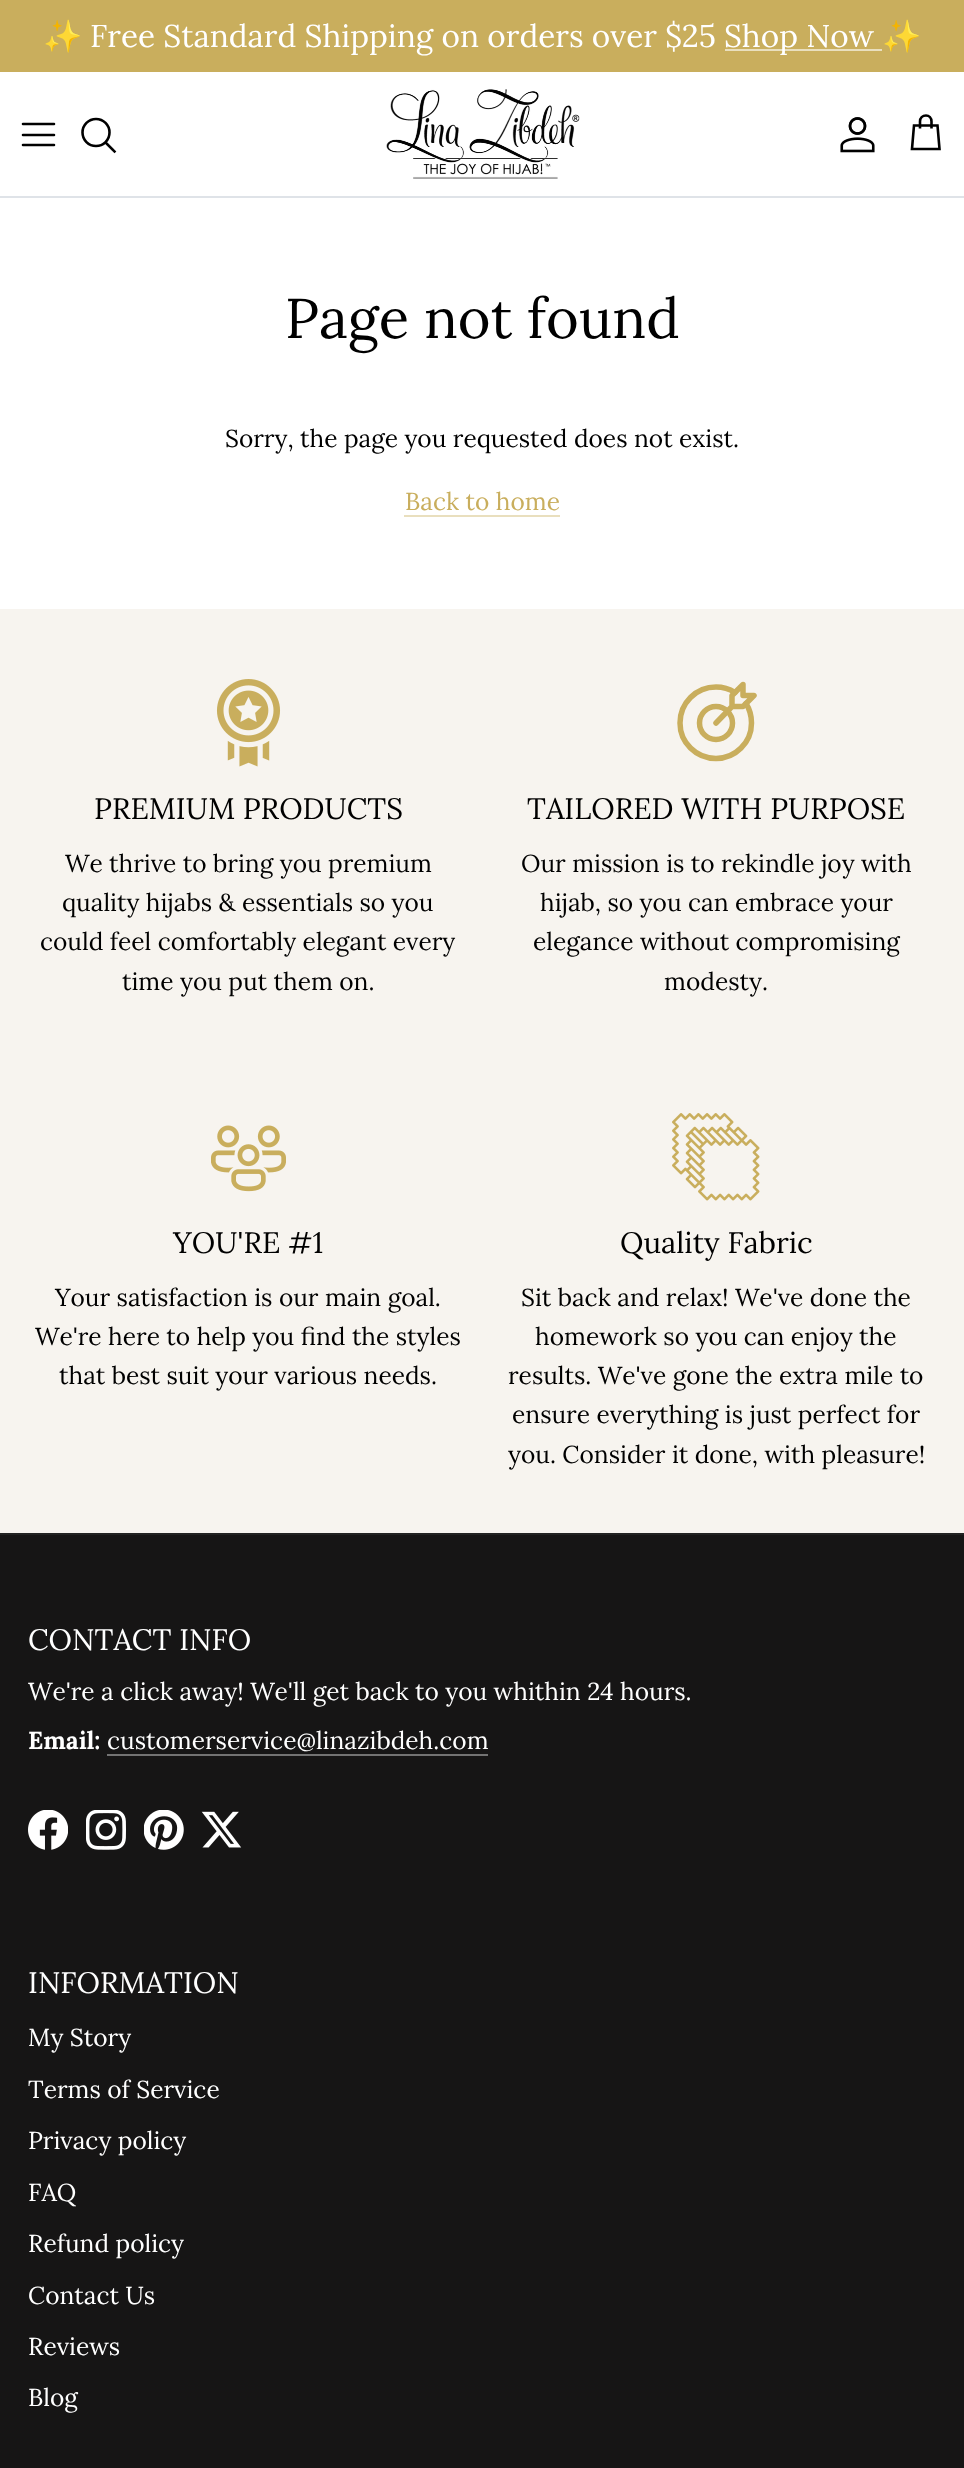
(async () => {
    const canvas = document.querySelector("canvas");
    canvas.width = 964;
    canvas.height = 2468;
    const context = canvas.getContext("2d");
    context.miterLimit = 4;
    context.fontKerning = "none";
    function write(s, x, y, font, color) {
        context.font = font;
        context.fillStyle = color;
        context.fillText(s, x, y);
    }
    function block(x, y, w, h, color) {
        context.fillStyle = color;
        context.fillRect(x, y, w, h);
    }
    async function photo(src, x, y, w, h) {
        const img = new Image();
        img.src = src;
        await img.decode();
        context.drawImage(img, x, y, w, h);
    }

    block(0, 0, 964, 2468, "rgb(255, 255, 255)");
    block(0, 0, 964, 72, "rgb(201, 174, 93)");
    write("✨", 43, 47, "31.5px Noto Color Emoji", "rgb(255, 255, 255)");
    write("Free Standard Shipping on orders over $25", 90, 47, "31.5px Lora", "rgb(255, 255, 255)");
    block(725, 49, 157, 2, "rgb(233, 223, 190)");
    write("Shop Now", 724, 47, "31.5px Lora", "rgb(255, 255, 255)");
    write("✨", 882, 47, "31.5px Noto Color Emoji", "rgb(255, 255, 255)");
    block(0, 196, 964, 2, "rgb(223, 227, 232)");
    context.beginPath();
    context.moveTo(23, 135);
    context.lineTo(54, 135);
    context.moveTo(23, 124);
    context.lineTo(54, 124);
    context.moveTo(23, 145);
    context.lineTo(54, 145);
    context.strokeStyle = "rgb(0, 0, 0)";
    context.lineWidth = 2.6;
    context.lineCap = "round";
    context.lineJoin = "round";
    context.stroke();
    context.beginPath();
    context.arc(96, 132.5, 13.5, 0, Math.PI * 2);
    context.stroke();
    context.beginPath();
    context.moveTo(106.5, 143.5);
    context.lineTo(114.5, 151.5);
    context.lineCap = "square";
    context.lineJoin = "miter";
    context.stroke();
    await photo("media/1.png", 386, 89, 194, 90);
    await photo("media/2.png", 840, 117, 35, 36);
    context.beginPath();
    context.moveTo(931.5, 128.5);
    context.lineTo(931.5, 121.5);
    context.bezierCurveTo(931.5, 118, 929, 115.5, 926, 115.5);
    context.bezierCurveTo(922.5, 115.5, 920, 118, 920, 121.5);
    context.lineTo(920, 128.5);
    context.moveTo(914, 125.5);
    context.lineTo(937.5, 125.5);
    context.lineTo(939.5, 149);
    context.lineTo(912, 149);
    context.closePath();
    context.lineCap = "butt";
    context.stroke();
    write("Page not found", 285, 338, "56px Lora", "rgb(0, 0, 0)");
    write("Sorry, the page you requested does not exist.", 225, 447, "24.5px Lora", "rgb(0, 0, 0)");
    write("Back to home", 405, 510, "24.5px Lora", "rgb(201, 174, 93)");
    block(404, 515, 156, 2, "rgb(233, 223, 190)");
    block(0, 609, 964, 924, "rgb(247, 244, 239)");
    await photo("media/3.png", 216, 679, 65, 88);
    write("PREMIUM PRODUCTS", 94, 819, "29.5px Lora", "rgb(0, 0, 0)");
    write("We thrive to bring you premium", 65, 872, "24.5px Lora", "rgb(0, 0, 0)");
    write("quality hijabs & essentials so you", 62, 911, "24.5px Lora", "rgb(0, 0, 0)");
    write("could feel comfortably elegant every", 40, 950, "24.5px Lora", "rgb(0, 0, 0)");
    write("time you put them on.", 122, 990, "24.5px Lora", "rgb(0, 0, 0)");
    context.beginPath();
    context.moveTo(716, 723);
    context.lineTo(732, 706.5);
    context.moveTo(754, 695.5);
    context.lineTo(743, 695.5);
    context.lineTo(743, 684.5);
    context.lineTo(732, 695.5);
    context.lineTo(732, 706.5);
    context.lineTo(743, 706.5);
    context.closePath();
    context.strokeStyle = "rgb(201, 174, 93)";
    context.lineWidth = 5.5;
    context.lineCap = "round";
    context.lineJoin = "round";
    context.stroke();
    context.beginPath();
    context.arc(716, 723, 16.5, 0, Math.PI * 2);
    context.stroke();
    context.beginPath();
    context.moveTo(746, 703.5);
    context.bezierCurveTo(749.5, 709, 751.5, 715.5, 751.5, 723);
    context.bezierCurveTo(751.5, 742.5, 735.5, 758.5, 716, 758.5);
    context.bezierCurveTo(696, 758.5, 680, 742.5, 680, 723);
    context.bezierCurveTo(680, 703, 696, 687, 716, 687);
    context.bezierCurveTo(723, 687, 729.5, 689, 735, 692.5);
    context.stroke();
    write("TAILORED WITH PURPOSE", 527, 819, "29.5px Lora", "rgb(0, 0, 0)");
    write("Our mission is to rekindle joy with", 521, 872, "24.5px Lora", "rgb(0, 0, 0)");
    write("hijab, so you can embrace your", 540, 911, "24.5px Lora", "rgb(0, 0, 0)");
    write("elegance without compromising", 533, 950, "24.5px Lora", "rgb(0, 0, 0)");
    write("modesty.", 664, 990, "24.5px Lora", "rgb(0, 0, 0)");
    await photo("media/4.png", 211, 1125, 75, 67);
    write("YOU'RE #1", 173, 1253, "29.5px Lora", "rgb(0, 0, 0)");
    write("Your satisfaction is our main goal.", 55, 1306, "24.5px Lora", "rgb(0, 0, 0)");
    write("We're here to help you find the styles", 35, 1345, "24.5px Lora", "rgb(0, 0, 0)");
    write("that best suit your various needs.", 59, 1384, "24.5px Lora", "rgb(0, 0, 0)");
    await photo("media/5.png", 672, 1113, 88, 88);
    write("Quality Fabric", 620, 1253, "29.5px Lora", "rgb(0, 0, 0)");
    write("Sit back and relax! We've done the", 521, 1306, "24.5px Lora", "rgb(0, 0, 0)");
    write("homework so you can enjoy the", 535, 1345, "24.5px Lora", "rgb(0, 0, 0)");
    write("results. We've gone the extra mile to", 508, 1384, "24.5px Lora", "rgb(0, 0, 0)");
    write("ensure everything is just perfect for", 512, 1423, "24.5px Lora", "rgb(0, 0, 0)");
    write("you. Consider it done, with pleasure!", 508, 1463, "24.5px Lora", "rgb(0, 0, 0)");
    block(0, 1535, 964, 933, "rgb(22, 21, 21)");
    block(0, 1533, 964, 2, "rgb(34, 34, 34)");
    write("CONTACT INFO", 28, 1650, "29.5px Lora", "rgb(255, 255, 255)");
    write("We're a click away! We'll get back to you whithin 24 hours.", 28, 1700, "24.5px Lora", "rgb(255, 255, 255)");
    write("Email:", 28, 1749, "bold 24.5px Lora", "rgb(255, 255, 255)");
    write("customerservice@linazibdeh.com", 107, 1749, "24.5px Lora", "rgb(255, 255, 255)");
    block(107, 1754, 381, 2, "rgb(115, 115, 115)");
    await photo("media/6.png", 28, 1810, 40, 40);
    await photo("media/7.png", 86, 1810, 40, 40);
    await photo("media/8.png", 144, 1810, 40, 40);
    await photo("media/9.png", 201, 1811, 41, 37);
    write("INFORMATION", 28, 1993, "29.5px Lora", "rgb(255, 255, 255)");
    write("My Story", 28, 2046, "24.5px Lora", "rgb(255, 255, 255)");
    write("Terms of Service", 28, 2098, "24.5px Lora", "rgb(255, 255, 255)");
    write("Privacy policy", 28, 2149, "24.5px Lora", "rgb(255, 255, 255)");
    write("FAQ", 28, 2201, "24.5px Lora", "rgb(255, 255, 255)");
    write("Refund policy", 28, 2252, "24.5px Lora", "rgb(255, 255, 255)");
    write("Contact Us", 28, 2304, "24.5px Lora", "rgb(255, 255, 255)");
    write("Reviews", 28, 2355, "24.5px Lora", "rgb(255, 255, 255)");
    write("Blog", 28, 2406, "24.5px Lora", "rgb(255, 255, 255)");
})();
